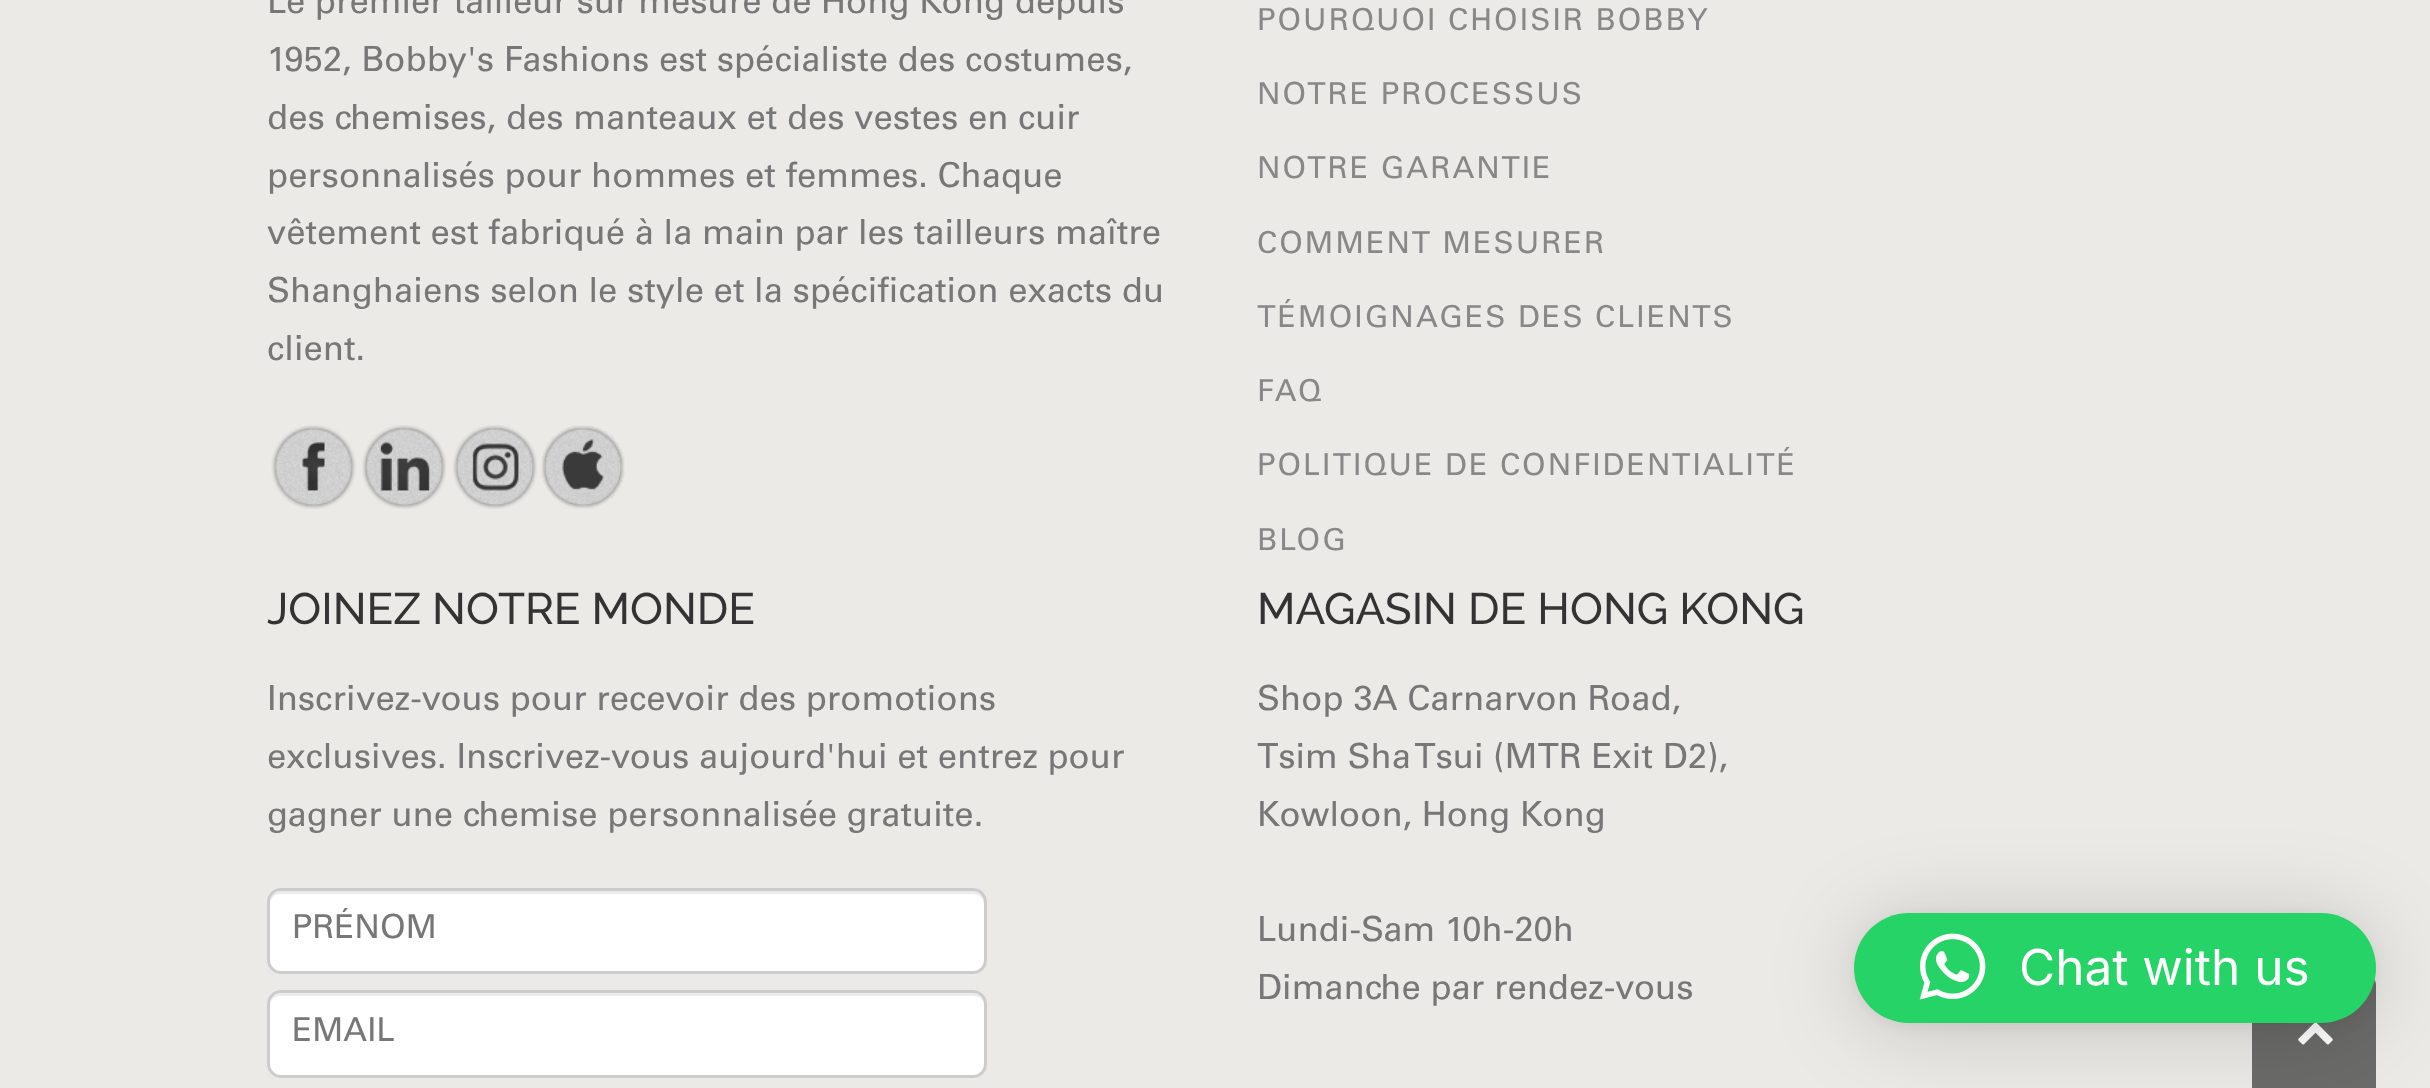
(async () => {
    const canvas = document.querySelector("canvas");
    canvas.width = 2430;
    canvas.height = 1088;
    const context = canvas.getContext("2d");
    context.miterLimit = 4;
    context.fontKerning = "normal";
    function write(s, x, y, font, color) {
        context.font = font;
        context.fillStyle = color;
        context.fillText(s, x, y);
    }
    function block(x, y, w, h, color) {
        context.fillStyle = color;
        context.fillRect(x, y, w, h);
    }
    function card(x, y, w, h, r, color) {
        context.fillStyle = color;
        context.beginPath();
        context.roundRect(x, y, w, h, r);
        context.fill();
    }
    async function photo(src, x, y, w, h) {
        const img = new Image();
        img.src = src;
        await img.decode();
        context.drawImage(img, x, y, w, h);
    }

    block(0, 0, 2430, 1088, "rgb(235, 234, 230)");
    write("Le premier tailleur sur mesure de Hong Kong depuis", 267, 13, "34.65px Univers", "rgb(119, 119, 119)");
    write("1952, Bobby's Fashions est spécialiste des costumes,", 267, 71, "34.65px Univers", "rgb(119, 119, 119)");
    write("des chemises, des manteaux et des vestes en cuir", 267, 129, "34.65px Univers", "rgb(119, 119, 119)");
    write("personnalisés pour hommes et femmes. Chaque", 267, 187, "34.65px Univers", "rgb(119, 119, 119)");
    write("vêtement est fabriqué à la main par les tailleurs maître", 267, 244, "34.65px Univers", "rgb(119, 119, 119)");
    write("Shanghaiens selon le style et la spécification exacts du", 267, 302, "34.65px Univers", "rgb(119, 119, 119)");
    write("client.", 267, 360, "34.65px Univers", "rgb(119, 119, 119)");
    await photo("media/1.png", 271, 425, 85, 84);
    await photo("media/2.png", 362, 425, 84, 84);
    await photo("media/3.png", 453, 425, 84, 84);
    await photo("media/4.png", 541, 425, 84, 84);
    context.letterSpacing = "2.05px";
    write("POURQUOI CHOISIR BOBBY", 1257, 30, "30.25px Univers", "rgb(136, 136, 136)");
    write("NOTRE PROCESSUS", 1257, 104, "30.25px Univers", "rgb(136, 136, 136)");
    write("NOTRE GARANTIE", 1257, 178, "30.25px Univers", "rgb(136, 136, 136)");
    write("COMMENT MESURER", 1257, 253, "30.25px Univers", "rgb(136, 136, 136)");
    write("TÉMOIGNAGES DES CLIENTS", 1257, 327, "30.25px Univers", "rgb(136, 136, 136)");
    write("FAQ", 1257, 401, "30.25px Univers", "rgb(136, 136, 136)");
    write("POLITIQUE DE CONFIDENTIALITÉ", 1257, 475, "30.25px Univers", "rgb(136, 136, 136)");
    write("BLOG", 1257, 550, "30.25px Univers", "rgb(136, 136, 136)");
    context.letterSpacing = "0px";
    write("JOINEZ NOTRE MONDE", 267, 624, "500 44px Raleway", "rgb(51, 51, 51)");
    write("Inscrivez-vous pour recevoir des promotions", 267, 710, "34.65px Univers", "rgb(119, 119, 119)");
    write("exclusives. Inscrivez-vous aujourd'hui et entrez pour", 267, 768, "34.65px Univers", "rgb(119, 119, 119)");
    write("gagner une chemise personnalisée gratuite.", 267, 826, "34.65px Univers", "rgb(119, 119, 119)");
    card(267, 888, 720, 86, 14, "rgb(255, 255, 255)");
    context.fillStyle = "rgb(236, 236, 236)";
    context.beginPath();
    context.moveTo(280, 894);
    context.lineTo(974, 894);
    context.bezierCurveTo(980, 894, 984, 899, 984, 905);
    context.lineTo(984, 965);
    context.bezierCurveTo(985, 964, 985, 962, 985, 960);
    context.lineTo(985, 902);
    context.bezierCurveTo(985, 896, 980, 891, 974, 891);
    context.lineTo(281, 891);
    context.bezierCurveTo(275, 891, 270, 896, 270, 902);
    context.lineTo(270, 905);
    context.bezierCurveTo(270, 899, 274, 894, 280, 894);
    context.closePath();
    context.fill();
    context.beginPath();
    context.roundRect(268.5, 889.5, 717, 83, 12.5);
    context.strokeStyle = "rgb(204, 204, 204)";
    context.lineWidth = 3;
    context.stroke();
    context.save();
    context.beginPath();
    context.rect(292, 908, 671, 46);
    context.clip();
    write("PRÉNOM", 292, 938, "33px Univers", "rgb(119, 119, 119)");
    context.restore();
    card(267, 990, 720, 88, 14, "rgb(255, 255, 255)");
    context.fillStyle = "rgb(236, 236, 236)";
    context.beginPath();
    context.moveTo(280, 996);
    context.lineTo(974, 996);
    context.bezierCurveTo(980, 996, 984, 1000, 984, 1006);
    context.lineTo(984, 1069);
    context.bezierCurveTo(985, 1067, 985, 1066, 985, 1064);
    context.lineTo(985, 1004);
    context.bezierCurveTo(985, 998, 980, 993, 974, 993);
    context.lineTo(281, 993);
    context.bezierCurveTo(275, 993, 270, 998, 270, 1004);
    context.lineTo(270, 1006);
    context.bezierCurveTo(270, 1000, 274, 996, 280, 996);
    context.closePath();
    context.fill();
    context.beginPath();
    context.roundRect(268.5, 991.5, 717, 85, 12.5);
    context.stroke();
    write("EMAIL", 292, 1041, "33px Univers", "rgb(119, 119, 119)");
    write("MAGASIN DE HONG KONG", 1257, 624, "500 44px Raleway", "rgb(51, 51, 51)");
    write("Shop 3A Carnarvon Road,", 1257, 710, "34.65px Univers", "rgb(119, 119, 119)");
    write("Tsim Sha Tsui (MTR Exit D2),", 1257, 768, "34.65px Univers", "rgb(119, 119, 119)");
    write("Kowloon, Hong Kong", 1257, 826, "34.65px Univers", "rgb(119, 119, 119)");
    write("Lundi-Sam 10h-20h", 1257, 941, "34.65px Univers", "rgb(119, 119, 119)");
    write("Dimanche par rendez-vous", 1257, 999, "34.65px Univers", "rgb(119, 119, 119)");
    context.fillStyle = "rgb(107, 107, 106)";
    context.beginPath();
    context.moveTo(2263, 974);
    context.lineTo(2365, 974);
    context.bezierCurveTo(2371, 974, 2376, 979, 2376, 985);
    context.lineTo(2376, 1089);
    context.lineTo(2252, 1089);
    context.lineTo(2252, 985);
    context.bezierCurveTo(2252, 979, 2257, 974, 2263, 974);
    context.closePath();
    context.fill();
    await photo("media/6.png", 2298, 1023, 35, 22);
    context.fillStyle = "rgba(0, 0, 0, 0.16)";
    context.filter = "blur(44px)";
    context.beginPath();
    context.roundRect(1854, 919, 522, 110, 55);
    context.fill();
    context.filter = "none";
    context.fillStyle = "rgba(0, 0, 0, 0.06)";
    context.filter = "blur(8px)";
    context.beginPath();
    context.roundRect(1854, 916, 522, 110, 55);
    context.fill();
    context.filter = "none";
    card(1854, 913, 522, 110, 55, "rgb(37, 211, 102)");
    await photo("media/5.png", 1919, 933, 67, 67);
    write("Chat with us", 2019, 985, "49.5px Inter", "rgb(255, 255, 255)");
})();
